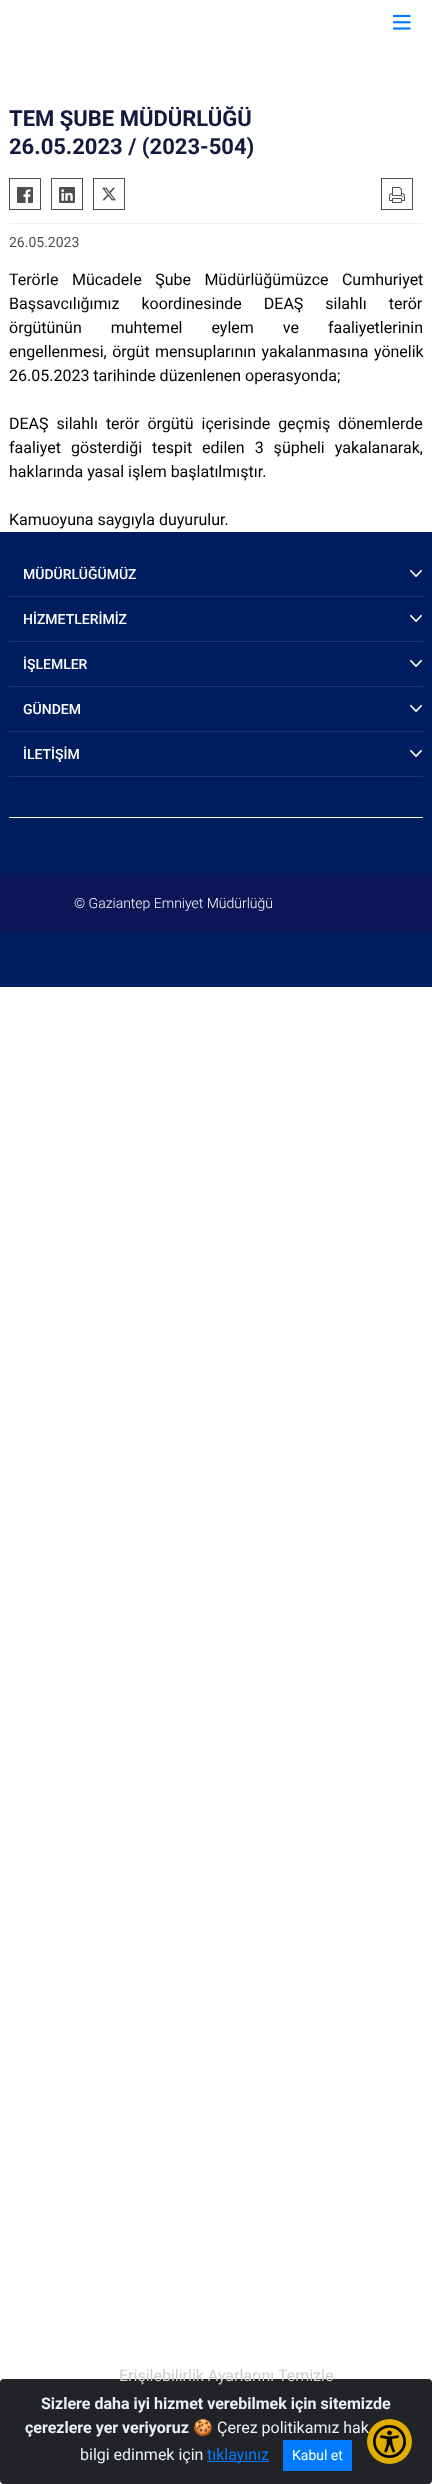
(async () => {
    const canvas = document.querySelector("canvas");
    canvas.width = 432;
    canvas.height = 2484;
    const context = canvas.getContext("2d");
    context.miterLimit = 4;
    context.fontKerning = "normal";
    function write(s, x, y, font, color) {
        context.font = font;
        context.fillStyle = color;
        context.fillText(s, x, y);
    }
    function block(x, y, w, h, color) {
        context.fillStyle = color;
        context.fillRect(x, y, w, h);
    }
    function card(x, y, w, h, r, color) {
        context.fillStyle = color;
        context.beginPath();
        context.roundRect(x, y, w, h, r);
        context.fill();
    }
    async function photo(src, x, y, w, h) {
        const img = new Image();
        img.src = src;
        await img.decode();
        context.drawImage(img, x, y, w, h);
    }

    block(0, 0, 432, 2484, "rgb(255, 255, 255)");
    await photo("media/1.png", 393, 14, 18, 16);
    block(9, 223, 414, 1, "rgb(238, 238, 238)");
    write("TEM ŞUBE MÜDÜRLÜĞÜ", 9, 126, "bold 22px Roboto", "rgb(19, 24, 62)");
    write("26.05.2023 / (2023-504)", 9, 154, "bold 22px Roboto", "rgb(19, 24, 62)");
    context.strokeStyle = "rgb(79, 79, 79)";
    context.strokeRect(9.5, 178.5, 31, 31);
    await photo("media/2.png", 17, 187, 16, 16);
    context.strokeRect(51.5, 178.5, 31, 31);
    await photo("media/3.png", 59, 187, 16, 16);
    context.strokeRect(93.5, 178.5, 31, 31);
    await photo("media/4.png", 102, 187, 14, 14);
    context.strokeRect(381.5, 178.5, 31, 31);
    await photo("media/5.png", 389, 187, 16, 16);
    write("26.05.2023", 9, 247, "14px Roboto", "rgb(79, 79, 79)");
    context.wordSpacing = "9.5px";
    write("Terörle Mücadele Şube Müdürlüğümüzce Cumhuriyet", 9, 285, "16px Roboto", "rgb(0, 0, 0)");
    context.wordSpacing = "18px";
    write("Başsavcılığımız koordinesinde DEAŞ silahlı terör", 9, 309, "16px Roboto", "rgb(0, 0, 0)");
    context.wordSpacing = "25px";
    write("örgütünün muhtemel eylem ve faaliyetlerinin", 9, 333, "16px Roboto", "rgb(0, 0, 0)");
    context.wordSpacing = "1.5px";
    write("engellenmesi, örgüt mensuplarının yakalanmasına yönelik", 9, 357, "16px Roboto", "rgb(0, 0, 0)");
    context.wordSpacing = "0px";
    write("26.05.2023 tarihinde düzenlenen operasyonda;", 9, 381, "16px Roboto", "rgb(0, 0, 0)");
    context.wordSpacing = "4px";
    write("DEAŞ silahlı terör örgütü içerisinde geçmiş dönemlerde", 9, 429, "16px Roboto", "rgb(0, 0, 0)");
    context.wordSpacing = "6px";
    write("faaliyet gösterdiği tespit edilen 3 şüpheli yakalanarak,", 9, 453, "16px Roboto", "rgb(0, 0, 0)");
    context.wordSpacing = "0px";
    write("haklarında yasal işlem başlatılmıştır.", 9, 477, "16px Roboto", "rgb(0, 0, 0)");
    write("Kamuoyuna saygıyla duyurulur.", 9, 525, "16px Roboto", "rgb(0, 0, 0)");
    block(0, 532, 432, 455, "rgb(0, 30, 95)");
    block(9, 596, 414, 1, "rgb(26, 53, 111)");
    write("MÜDÜRLÜĞÜMÜZ", 23, 579, "500 14px Roboto", "rgb(255, 255, 255)");
    await photo("media/6.png", 410, 569, 12, 8);
    block(9, 641, 414, 1, "rgb(26, 53, 111)");
    write("HİZMETLERİMİZ", 23, 624, "500 14px Roboto", "rgb(255, 255, 255)");
    await photo("media/6.png", 410, 614, 12, 8);
    block(9, 686, 414, 1, "rgb(26, 53, 111)");
    write("İŞLEMLER", 23, 669, "500 14px Roboto", "rgb(255, 255, 255)");
    await photo("media/6.png", 410, 659, 12, 8);
    block(9, 731, 414, 1, "rgb(26, 53, 111)");
    write("GÜNDEM", 23, 714, "500 14px Roboto", "rgb(255, 255, 255)");
    await photo("media/6.png", 410, 704, 12, 8);
    block(9, 776, 414, 1, "rgb(26, 53, 111)");
    write("İLETİŞİM", 23, 759, "500 14px Roboto", "rgb(255, 255, 255)");
    await photo("media/6.png", 410, 749, 12, 8);
    block(9, 817, 414, 1, "rgb(255, 255, 255)");
    block(0, 873, 432, 60, "rgb(12, 22, 86)");
    write("© Gaziantep Emniyet Müdürlüğü", 74, 908, "300 14px Roboto", "rgb(255, 255, 255)");
    card(0, 2379, 432, 105, 4, "rgb(33, 35, 39)");
    write("Erişilebilirlik Ayarlarını Temizle", 119, 2381, "16px Roboto", "rgb(204, 204, 205)");
    write("Çerez politikamız hak", 217, 2433, "16px Roboto", "rgb(236, 240, 241)");
    context.fillStyle = "rgb(225, 173, 1)";
    context.beginPath();
    context.arc(389.5, 2441.5, 22.5, 0, Math.PI * 2);
    context.fill();
    await photo("media/7.png", 373, 2425, 33, 33);
    write("Sizlere daha iyi hizmet verebilmek için sitemizde", 41, 2409, "bold 16px Roboto", "rgb(236, 240, 241)");
    write("çerezlere yer veriyoruz", 25, 2433, "bold 16px Roboto", "rgb(236, 240, 241)");
    write("🍪", 193, 2433, "16px Noto Color Emoji", "rgb(236, 240, 241)");
    write("bilgi edinmek için", 80, 2460, "16px Roboto", "rgb(236, 240, 241)");
    block(207, 2461, 62, 1, "rgb(0, 123, 255)");
    write("tıklayınız", 207, 2460, "16px Roboto", "rgb(0, 123, 255)");
    block(283, 2440, 69, 31, "rgb(0, 123, 255)");
    write("Kabul et", 292, 2460, "14px Roboto", "rgb(255, 255, 255)");
})();
